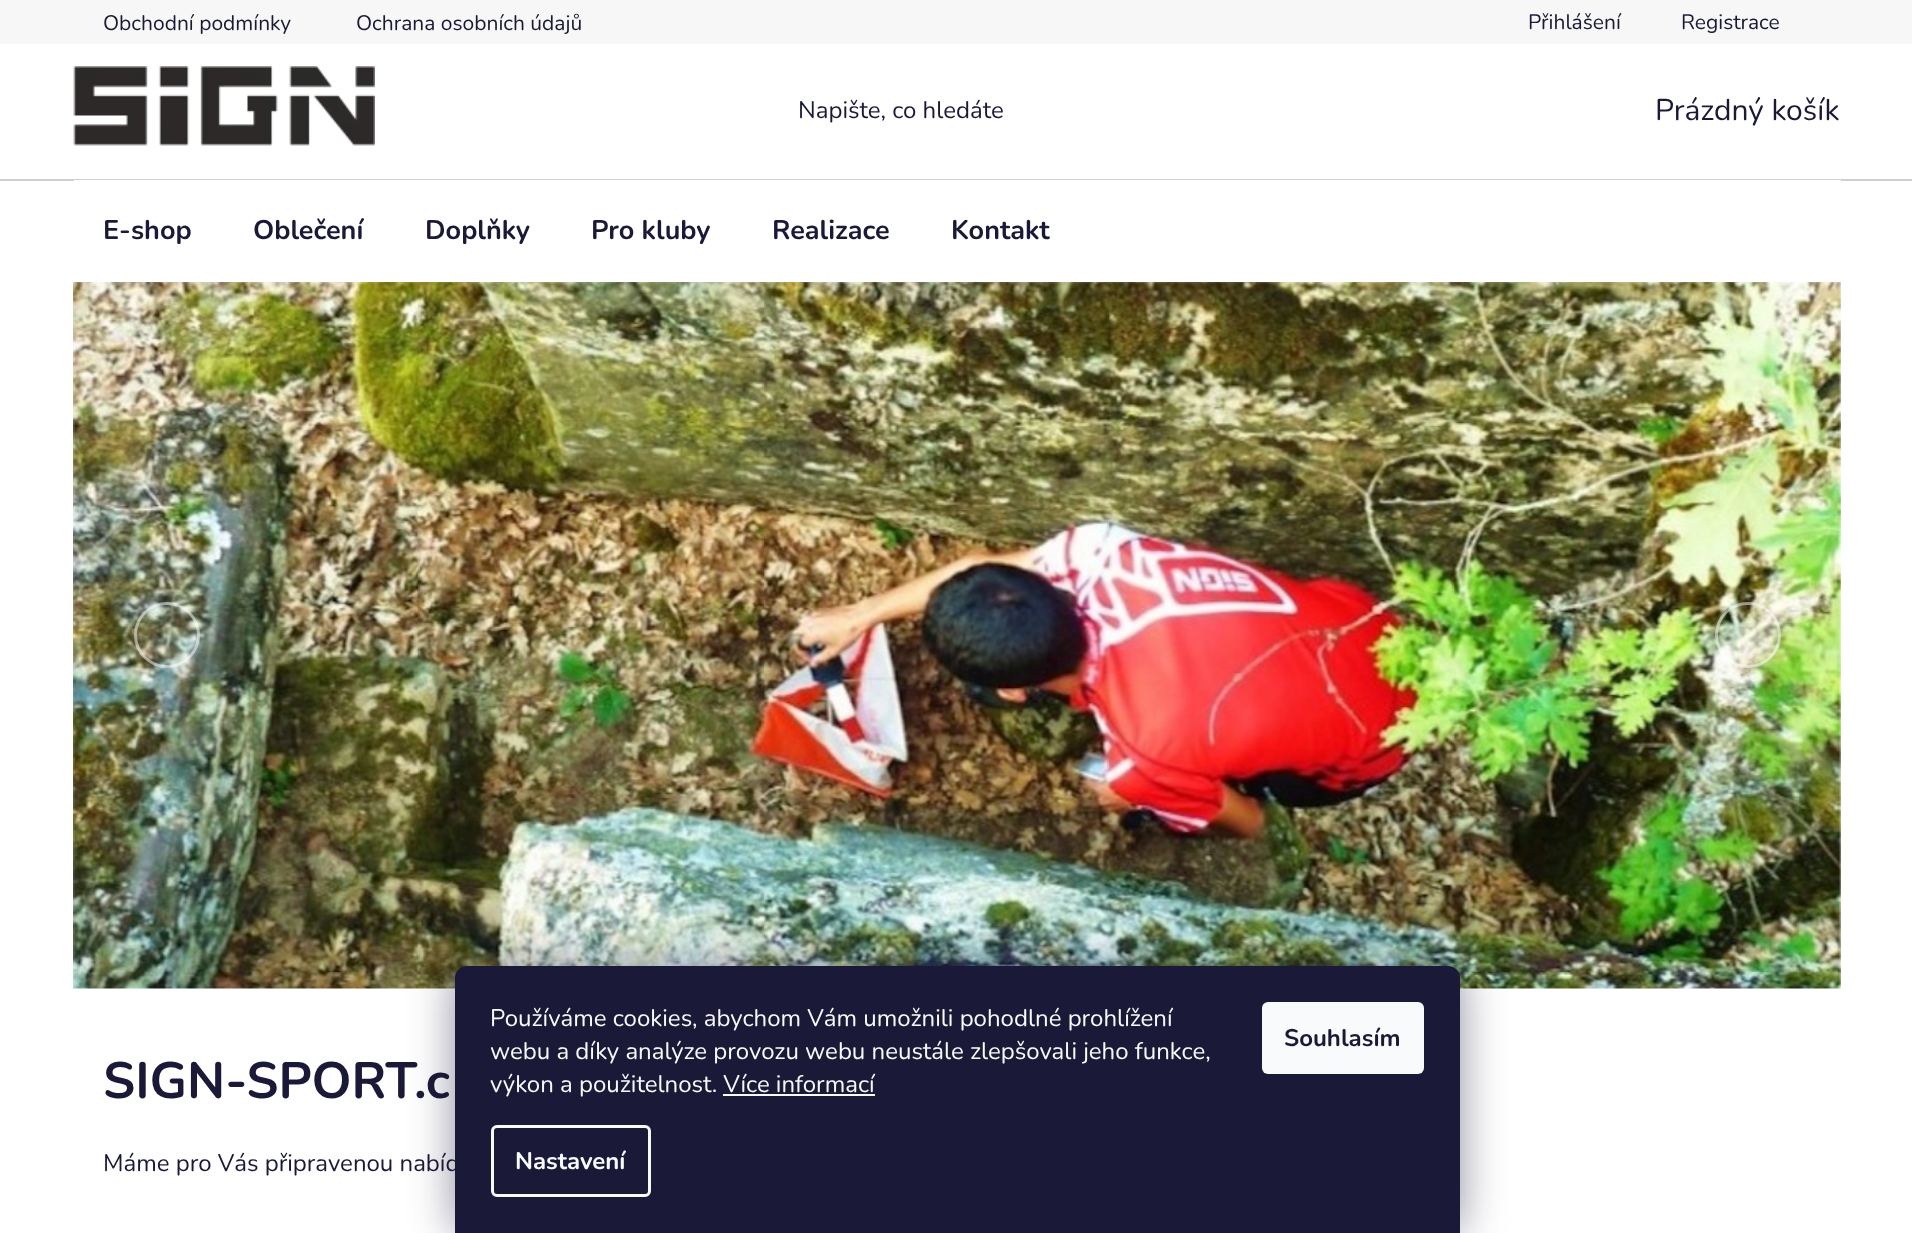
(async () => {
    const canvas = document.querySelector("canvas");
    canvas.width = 1912;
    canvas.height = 1233;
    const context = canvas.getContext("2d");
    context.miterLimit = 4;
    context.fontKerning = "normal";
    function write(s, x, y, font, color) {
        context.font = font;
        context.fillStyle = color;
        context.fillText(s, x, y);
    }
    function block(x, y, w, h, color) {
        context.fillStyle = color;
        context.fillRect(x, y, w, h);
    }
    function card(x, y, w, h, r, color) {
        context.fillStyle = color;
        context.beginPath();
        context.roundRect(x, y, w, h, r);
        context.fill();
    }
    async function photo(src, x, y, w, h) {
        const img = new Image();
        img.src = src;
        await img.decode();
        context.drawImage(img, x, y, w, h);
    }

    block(0, 0, 1912, 1233, "rgb(255, 255, 255)");
    block(0, 0, 1912, 44, "rgb(247, 247, 247)");
    write("Obchodní podmínky", 103, 30, "21px Nunito", "rgb(26, 25, 55)");
    write("Ochrana osobních údajů", 356, 30, "21px Nunito", "rgb(26, 25, 55)");
    write("Přihlášení", 1528, 29, "21px Nunito", "rgb(26, 25, 55)");
    write("Registrace", 1681, 29, "21px Nunito", "rgb(26, 25, 55)");
    await photo("media/1.png", 73, 66, 302, 80);
    write("Napište, co hledáte", 798, 118, "24px Nunito", "rgb(26, 25, 55)");
    write("Prázdný košík", 1655, 120, "30px Nunito", "rgb(26, 25, 55)");
    block(0, 179, 1912, 2, "rgb(207, 207, 207)");
    block(74, 180, 1767, 1, "rgb(255, 255, 255)");
    write("E-shop", 103, 239, "bold 27px Nunito", "rgb(26, 25, 55)");
    write("Oblečení", 253, 239, "bold 27px Nunito", "rgb(26, 25, 55)");
    write("Doplňky", 425, 239, "bold 27px Nunito", "rgb(26, 25, 55)");
    write("Pro kluby", 591, 239, "bold 27px Nunito", "rgb(26, 25, 55)");
    write("Realizace", 772, 239, "bold 27px Nunito", "rgb(26, 25, 55)");
    write("Kontakt", 951, 239, "bold 27px Nunito", "rgb(26, 25, 55)");
    await photo("media/2.png", 73, 282, 1768, 707);
    context.beginPath();
    context.arc(167, 635, 31.5, 0, Math.PI * 2);
    context.strokeStyle = "rgba(255, 255, 255, 0.5)";
    context.lineWidth = 3;
    context.stroke();
    context.beginPath();
    context.arc(1748, 635, 31.5, 0, Math.PI * 2);
    context.stroke();
    write("SIGN-SPORT.c", 103, 1098, "bold 51px Nunito", "rgb(26, 25, 55)");
    write("Máme pro Vás připravenou nabíd", 103, 1171, "24px Nunito", "rgb(26, 25, 55)");
    context.fillStyle = "rgba(27, 25, 57, 0.5)";
    context.filter = "blur(22.5px)";
    context.beginPath();
    context.roundRect(455, 966, 1005, 267, 12);
    context.fill();
    context.filter = "none";
    context.fillStyle = "rgb(26, 25, 55)";
    context.beginPath();
    context.roundRect(455, 966, 1005, 267, [12, 12, 0, 0]);
    context.fill();
    write("Používáme cookies, abychom Vám umožnili pohodlné prohlížení", 490, 1026, "24px Nunito", "rgb(248, 250, 251)");
    write("webu a díky analýze provozu webu neustále zlepšovali jeho funkce,", 490, 1059, "24px Nunito", "rgb(248, 250, 251)");
    write("výkon a použitelnost. Více informací", 490, 1092, "24px Nunito", "rgb(248, 250, 251)");
    block(723, 1094, 152, 2, "rgb(248, 250, 251)");
    context.beginPath();
    context.roundRect(492.5, 1126.5, 157, 69, 4.5);
    context.strokeStyle = "rgb(248, 250, 251)";
    context.stroke();
    write("Nastavení", 515, 1169, "bold 24px Nunito", "rgb(248, 250, 251)");
    card(1262, 1002, 162, 72, 6, "rgb(248, 250, 251)");
    write("Souhlasím", 1284, 1046, "bold 24px Nunito", "rgb(26, 25, 55)");
})();
